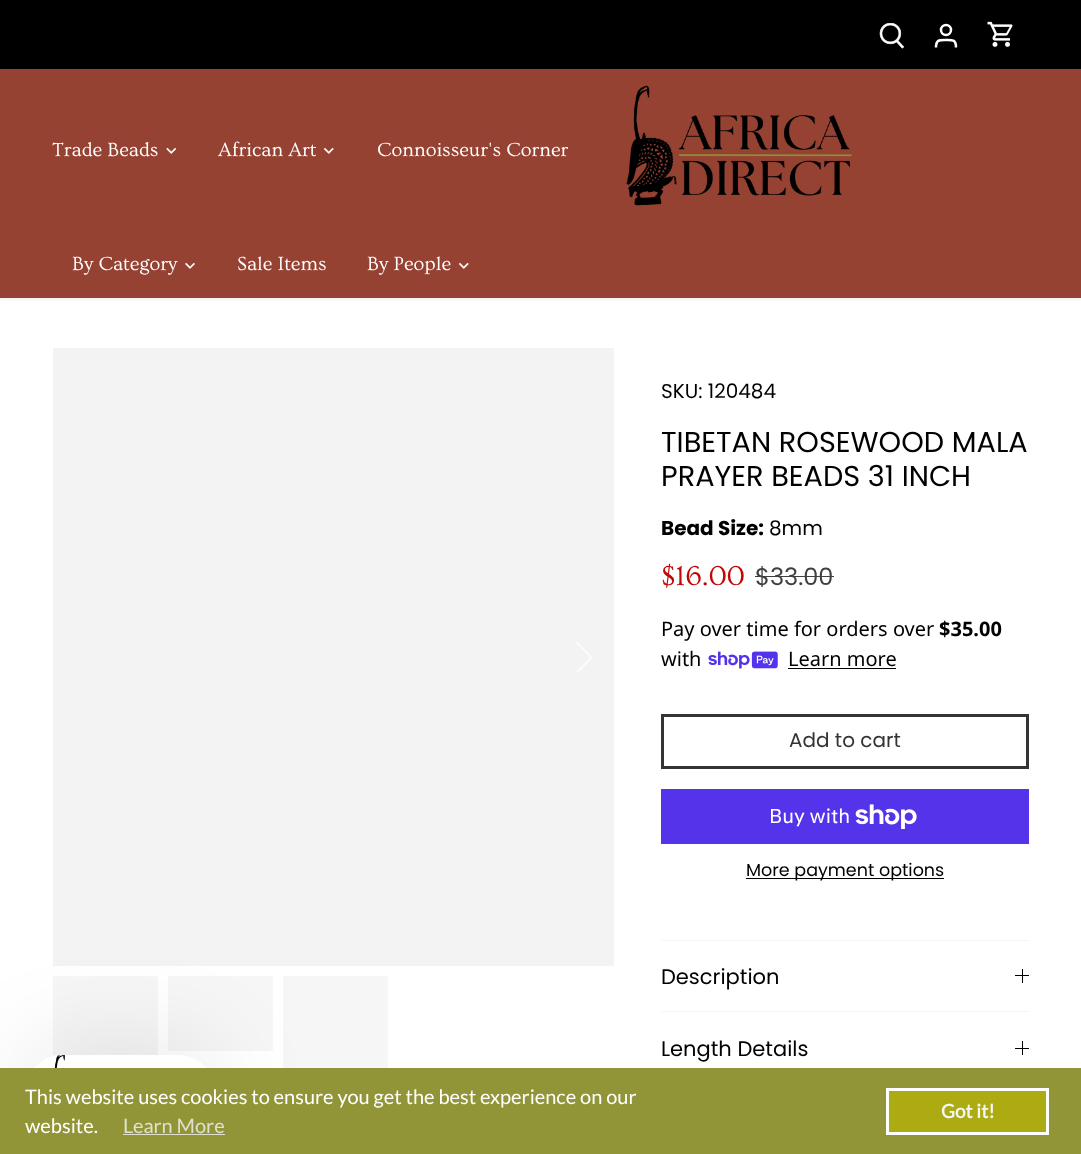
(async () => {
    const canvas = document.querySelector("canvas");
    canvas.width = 1081;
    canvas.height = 1154;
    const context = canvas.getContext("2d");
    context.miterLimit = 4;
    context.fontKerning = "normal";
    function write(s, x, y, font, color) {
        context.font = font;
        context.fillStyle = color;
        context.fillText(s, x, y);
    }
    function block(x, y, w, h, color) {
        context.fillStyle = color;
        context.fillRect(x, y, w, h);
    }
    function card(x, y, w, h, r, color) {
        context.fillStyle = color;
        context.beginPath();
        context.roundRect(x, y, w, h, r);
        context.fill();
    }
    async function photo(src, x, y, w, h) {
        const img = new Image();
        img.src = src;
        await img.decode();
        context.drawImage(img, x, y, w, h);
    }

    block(0, 0, 1081, 1154, "rgb(255, 255, 255)");
    context.fillStyle = "rgba(0, 0, 0, 0.08)";
    context.filter = "blur(2px)";
    context.beginPath();
    context.rect(-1, -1, 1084, 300);
    context.fill();
    context.filter = "none";
    block(0, 69, 1081, 229, "rgb(150, 66, 51)");
    block(0, 0, 1081, 69, "rgb(0, 0, 0)");
    await photo("media/1.png", 879, 23, 26, 26);
    context.beginPath();
    context.arc(946, 30, 5, 0, Math.PI * 2);
    context.strokeStyle = "rgb(255, 255, 255)";
    context.lineWidth = 2.5;
    context.stroke();
    context.beginPath();
    context.moveTo(956, 47.5);
    context.bezierCurveTo(956, 39.5, 953, 40, 946, 40);
    context.bezierCurveTo(939.5, 40, 936, 39.5, 936, 47.5);
    context.stroke();
    await photo("media/2.png", 987, 21, 26, 26);
    write("Trade Beads", 52, 156, "20px Ovo", "rgb(255, 255, 255)");
    await photo("media/3.png", 166, 147, 11, 7);
    write("African Art", 218, 156, "20px Ovo", "rgb(255, 255, 255)");
    await photo("media/4.png", 323, 147, 11, 7);
    write("Connoisseur's Corner", 377, 156, "20px Ovo", "rgb(255, 255, 255)");
    await photo("media/5.png", 626, 85, 226, 121);
    write("By Category", 72, 270, "20px Ovo", "rgb(255, 255, 255)");
    await photo("media/6.png", 185, 262, 10, 7);
    write("Sale Items", 237, 270, "20px Ovo", "rgb(255, 255, 255)");
    write("By People", 367, 270, "20px Ovo", "rgb(255, 255, 255)");
    await photo("media/4.png", 458, 262, 11, 7);
    block(53, 348, 561, 618, "rgb(243, 243, 243)");
    context.fillStyle = "rgb(252, 252, 252)";
    context.beginPath();
    context.moveTo(577.5, 642);
    context.lineTo(576, 643);
    context.lineTo(590, 657.5);
    context.lineTo(576, 672);
    context.lineTo(577.5, 673);
    context.lineTo(593, 657.5);
    context.closePath();
    context.fill();
    block(53, 976, 105, 79, "rgb(246, 246, 246)");
    block(168, 976, 105, 75, "rgb(246, 246, 246)");
    block(283, 976, 105, 92, "rgb(246, 246, 246)");
    write("SKU: 120484", 661, 398, "20px Poppins", "rgb(0, 0, 0)");
    write("TIBETAN ROSEWOOD MALA", 661, 452, "28.75px Poppins", "rgb(0, 0, 0)");
    write("PRAYER BEADS 31 INCH", 661, 486, "28.75px Poppins", "rgb(0, 0, 0)");
    write("Bead Size:", 661, 535, "bold 20px Poppins", "rgb(0, 0, 0)");
    write("8mm", 769, 535, "20px Poppins", "rgb(0, 0, 0)");
    write("$16.00", 661, 585, "28.75px Ovo", "rgb(192, 6, 6)");
    write("$33.00", 755, 585, "24px Poppins", "rgb(64, 64, 64)");
    block(755, 576, 79, 1, "rgb(64, 64, 64)");
    write("Pay over time for orders over", 661, 636, "20px Noto Sans", "rgb(0, 0, 0)");
    write("$35.00", 939, 636, "bold 20px Noto Sans", "rgb(0, 0, 0)");
    write("with", 661, 666, "20px Noto Sans", "rgb(0, 0, 0)");
    await photo("media/7.png", 708, 651, 70, 18);
    write("Learn more", 788, 666, "20px Noto Sans", "rgb(0, 0, 0)");
    block(788, 668, 108, 1, "rgb(0, 0, 0)");
    context.strokeStyle = "rgb(52, 52, 52)";
    context.lineWidth = 3;
    context.strokeRect(662.5, 715.5, 365, 52);
    write("Add to cart", 789, 747, "20px Poppins", "rgb(52, 52, 52)");
    block(661, 789, 368, 55, "rgb(84, 51, 235)");
    write("Buy with", 769, 823, "20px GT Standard", "rgb(255, 255, 255)");
    await photo("media/8.png", 855, 804, 62, 25);
    block(746, 878, 198, 1, "rgb(0, 0, 0)");
    write("More payment options", 746, 876, "17.5px Poppins", "rgb(0, 0, 0)");
    block(661, 940, 368, 1, "rgb(245, 245, 245)");
    block(661, 1011, 368, 1, "rgb(245, 245, 245)");
    write("Description", 661, 984, "21px Poppins", "rgb(0, 0, 0)");
    block(1022, 969, 1, 14, "rgb(0, 0, 0)");
    block(1015, 975, 14, 1, "rgb(0, 0, 0)");
    write("Length Details", 661, 1056, "21px Poppins", "rgb(0, 0, 0)");
    block(1022, 1041, 1, 14, "rgb(0, 0, 0)");
    block(1015, 1048, 14, 1, "rgb(0, 0, 0)");
    context.fillStyle = "rgba(0, 0, 0, 0.12)";
    context.filter = "blur(50px)";
    context.beginPath();
    context.roundRect(25, 1055, 191, 75, 37.5);
    context.fill();
    context.filter = "none";
    card(25, 1055, 191, 75, 37.5, "rgb(255, 255, 255)");
    await photo("media/9.png", 54, 1055, 11, 13);
    block(0, 1068, 1081, 86, "rgb(145, 149, 55)");
    write("This website uses cookies to ensure you get the best experience on our", 25, 1104, "20px Lato", "rgb(255, 255, 255)");
    write("website.", 25, 1133, "20px Lato", "rgb(255, 255, 255)");
    write("Learn More", 123, 1133, "20px Lato", "rgb(223, 224, 205)");
    block(123, 1134, 102, 1, "rgb(223, 224, 205)");
    context.fillStyle = "rgb(172, 172, 18)";
    context.beginPath();
    context.rect(887.5, 1089.5, 160, 44);
    context.fill();
    context.strokeStyle = "rgb(255, 255, 255)";
    context.stroke();
    write("Got it!", 941, 1118, "bold 19px Lato", "rgb(245, 245, 245)");
})();
